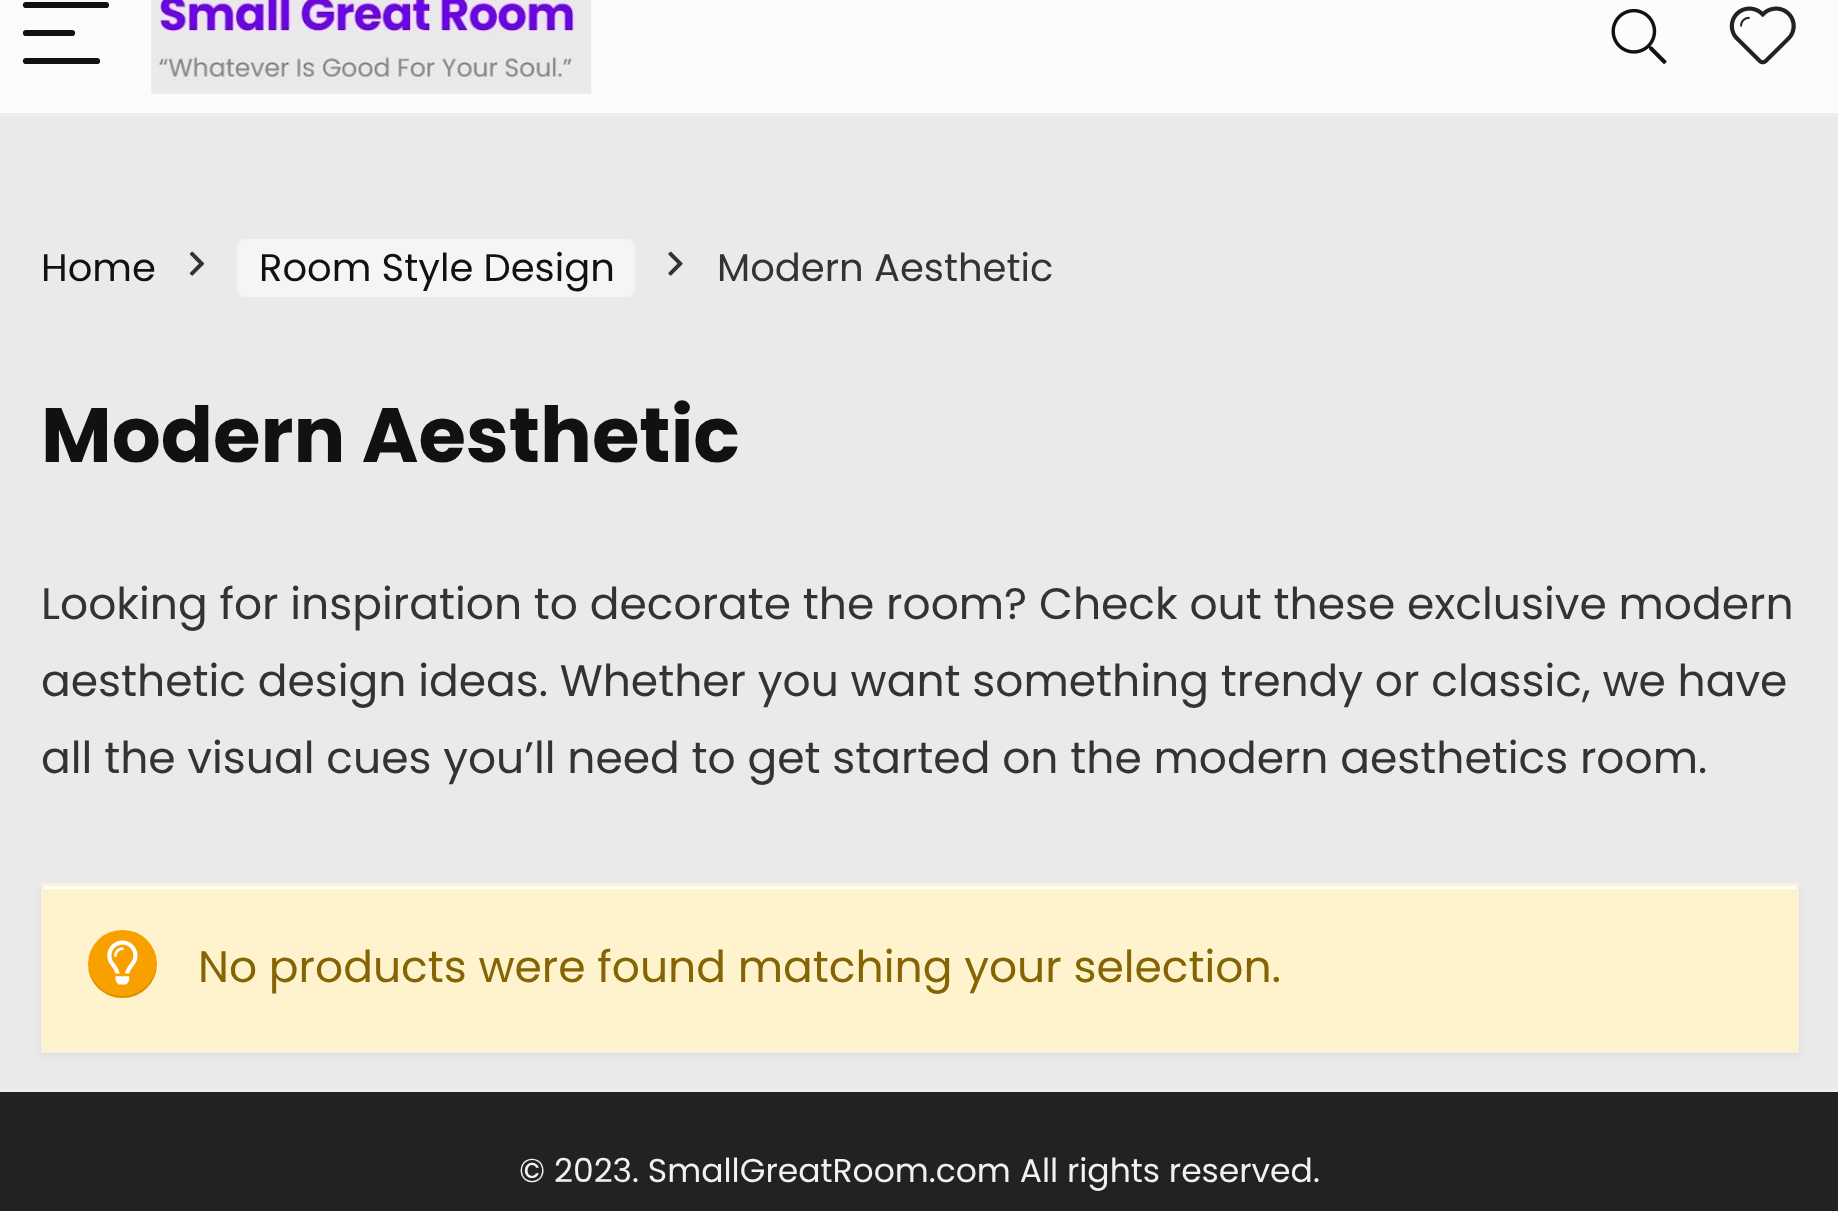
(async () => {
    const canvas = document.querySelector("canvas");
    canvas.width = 1838;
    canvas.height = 1211;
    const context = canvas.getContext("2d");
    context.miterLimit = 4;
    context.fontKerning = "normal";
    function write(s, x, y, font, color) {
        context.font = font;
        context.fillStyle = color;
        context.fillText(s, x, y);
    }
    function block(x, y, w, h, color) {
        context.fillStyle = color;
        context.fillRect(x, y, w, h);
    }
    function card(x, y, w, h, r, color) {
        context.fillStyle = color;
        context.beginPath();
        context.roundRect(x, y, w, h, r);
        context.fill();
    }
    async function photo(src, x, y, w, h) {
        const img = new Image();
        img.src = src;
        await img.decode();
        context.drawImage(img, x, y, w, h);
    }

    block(0, 0, 1838, 1211, "rgb(234, 234, 234)");
    block(0, 0, 1838, 113, "rgb(252, 252, 252)");
    block(0, 113, 1838, 3, "rgb(238, 238, 238)");
    context.beginPath();
    context.moveTo(26, 5);
    context.lineTo(106, 5);
    context.strokeStyle = "rgb(17, 17, 17)";
    context.lineWidth = 6.2;
    context.lineCap = "round";
    context.stroke();
    context.beginPath();
    context.moveTo(26, 33);
    context.lineTo(72, 33);
    context.stroke();
    context.beginPath();
    context.moveTo(26, 61);
    context.lineTo(97, 61);
    context.stroke();
    await photo("media/1.png", 151, 0, 441, 94);
    await photo("media/2.png", 1611, 8, 56, 56);
    await photo("media/3.png", 1729, 6, 67, 59);
    write("Home", 41, 281, "38.5px Poppins", "rgb(17, 17, 17)");
    await photo("media/4.png", 189, 251, 16, 25);
    card(237, 239, 398, 58, 8, "rgb(245, 245, 245)");
    write("Room Style Design", 259, 281, "38.5px Poppins", "rgb(17, 17, 17)");
    await photo("media/5.png", 668, 251, 15, 25);
    write("Modern Aesthetic", 717, 281, "38.5px Poppins", "rgb(51, 51, 51)");
    write("Modern Aesthetic", 41, 462, "bold 77px Poppins", "rgb(17, 17, 17)");
    write("Looking for inspiration to decorate the room? Check out these exclusive modern", 41, 619, "44px Poppins", "rgb(51, 51, 51)");
    write("aesthetic design ideas. Whether you want something trendy or classic, we have", 41, 696, "44px Poppins", "rgb(51, 51, 51)");
    write("all the visual cues you’ll need to get started on the modern aesthetics room.", 41, 773, "44px Poppins", "rgb(51, 51, 51)");
    context.fillStyle = "rgba(0, 0, 0, 0.05)";
    context.filter = "blur(3px)";
    context.beginPath();
    context.rect(41, 886, 1758, 170);
    context.fill();
    context.filter = "none";
    block(44, 889, 1752, 161, "rgb(255, 243, 205)");
    block(44, 886, 1752, 3, "rgb(255, 255, 255)");
    context.strokeStyle = "rgb(249, 241, 216)";
    context.lineWidth = 3;
    context.strokeRect(42.5, 884.5, 1755, 167);
    card(88, 930, 69, 68, 34, "rgb(247, 160, 0)");
    context.fillStyle = "rgba(0, 0, 0, 0.1)";
    context.beginPath();
    context.moveTo(88, 963);
    context.bezierCurveTo(87, 997, 132, 1011, 151, 983);
    context.bezierCurveTo(155, 977, 157, 970, 157, 962);
    context.bezierCurveTo(156, 981, 141, 996, 122, 996);
    context.bezierCurveTo(104, 996, 89, 981, 88, 963);
    context.closePath();
    context.fill();
    await photo("media/6.png", 107, 940, 31, 45);
    write("No products were found matching your selection.", 198, 982, "44px Poppins", "rgb(133, 100, 4)");
    block(0, 1089, 1838, 3, "rgb(238, 238, 238)");
    block(0, 1092, 1838, 119, "rgb(34, 34, 34)");
    write("© 2023. SmallGreatRoom.com All rights reserved.", 519, 1182, "33px Poppins", "rgb(241, 241, 241)");
})();
